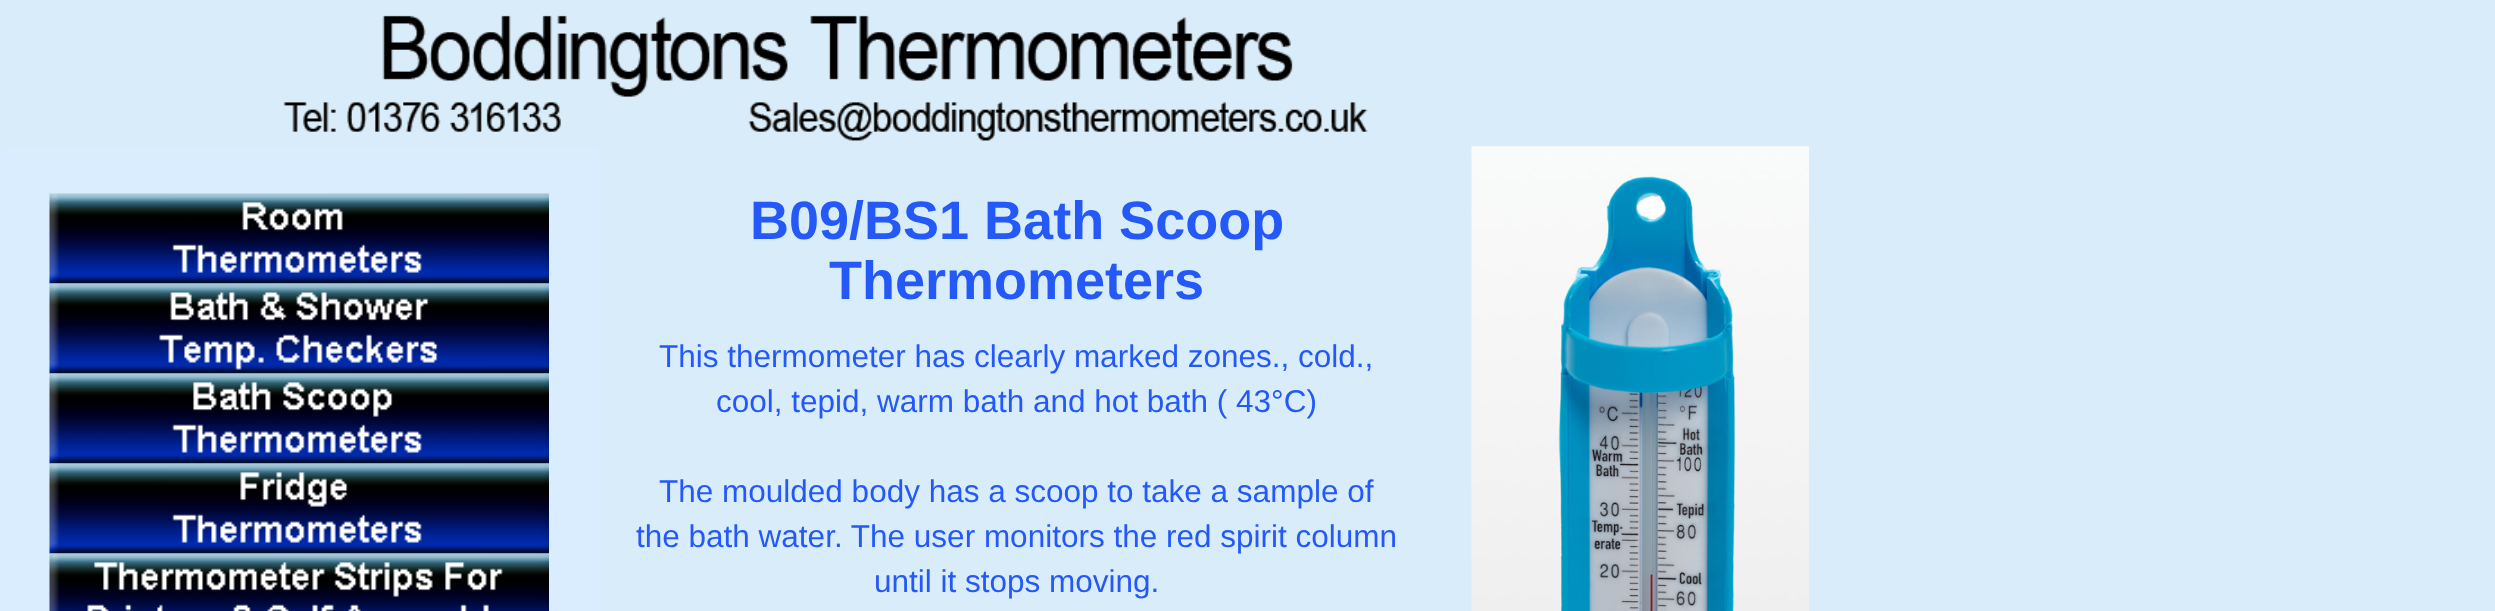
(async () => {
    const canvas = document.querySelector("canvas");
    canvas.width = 2495;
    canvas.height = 611;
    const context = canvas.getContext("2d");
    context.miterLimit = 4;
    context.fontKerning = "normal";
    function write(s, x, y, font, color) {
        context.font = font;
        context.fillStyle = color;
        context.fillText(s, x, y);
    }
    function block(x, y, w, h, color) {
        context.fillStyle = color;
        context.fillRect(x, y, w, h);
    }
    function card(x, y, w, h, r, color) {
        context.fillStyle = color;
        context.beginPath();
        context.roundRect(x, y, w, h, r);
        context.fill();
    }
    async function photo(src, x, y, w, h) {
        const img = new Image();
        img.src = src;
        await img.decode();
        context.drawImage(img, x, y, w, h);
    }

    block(0, 0, 2495, 611, "rgb(217, 236, 249)");
    await photo("media/1.png", 283, 15, 1085, 126);
    card(0, 146, 601, 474, 9, "rgb(217, 237, 254)");
    await photo("media/2.png", 49, 193, 500, 91);
    await photo("media/3.png", 49, 283, 500, 91);
    await photo("media/4.png", 49, 373, 500, 91);
    await photo("media/5.png", 49, 463, 500, 91);
    await photo("media/6.png", 49, 553, 500, 58);
    write("B09/BS1 Bath Scoop", 750, 239, "bold 54px Liberation Sans", "rgb(36, 89, 247)");
    write("Thermometers", 829, 299, "bold 54px Liberation Sans", "rgb(36, 89, 247)");
    write("This thermometer has clearly marked zones., cold.,", 659, 367, "31.5px Liberation Sans", "rgb(36, 89, 247)");
    write("cool, tepid, warm bath and hot bath ( 43°C)", 716, 412, "31.5px Liberation Sans", "rgb(36, 89, 247)");
    write("The moulded body has a scoop to take a sample of", 659, 502, "31.5px Liberation Sans", "rgb(36, 89, 247)");
    write("the bath water. The user monitors the red spirit column", 636, 547, "31.5px Liberation Sans", "rgb(36, 89, 247)");
    write("until it stops moving.", 874, 592, "31.5px Liberation Sans", "rgb(36, 89, 247)");
    await photo("media/7.png", 1471, 146, 338, 465);
})();
